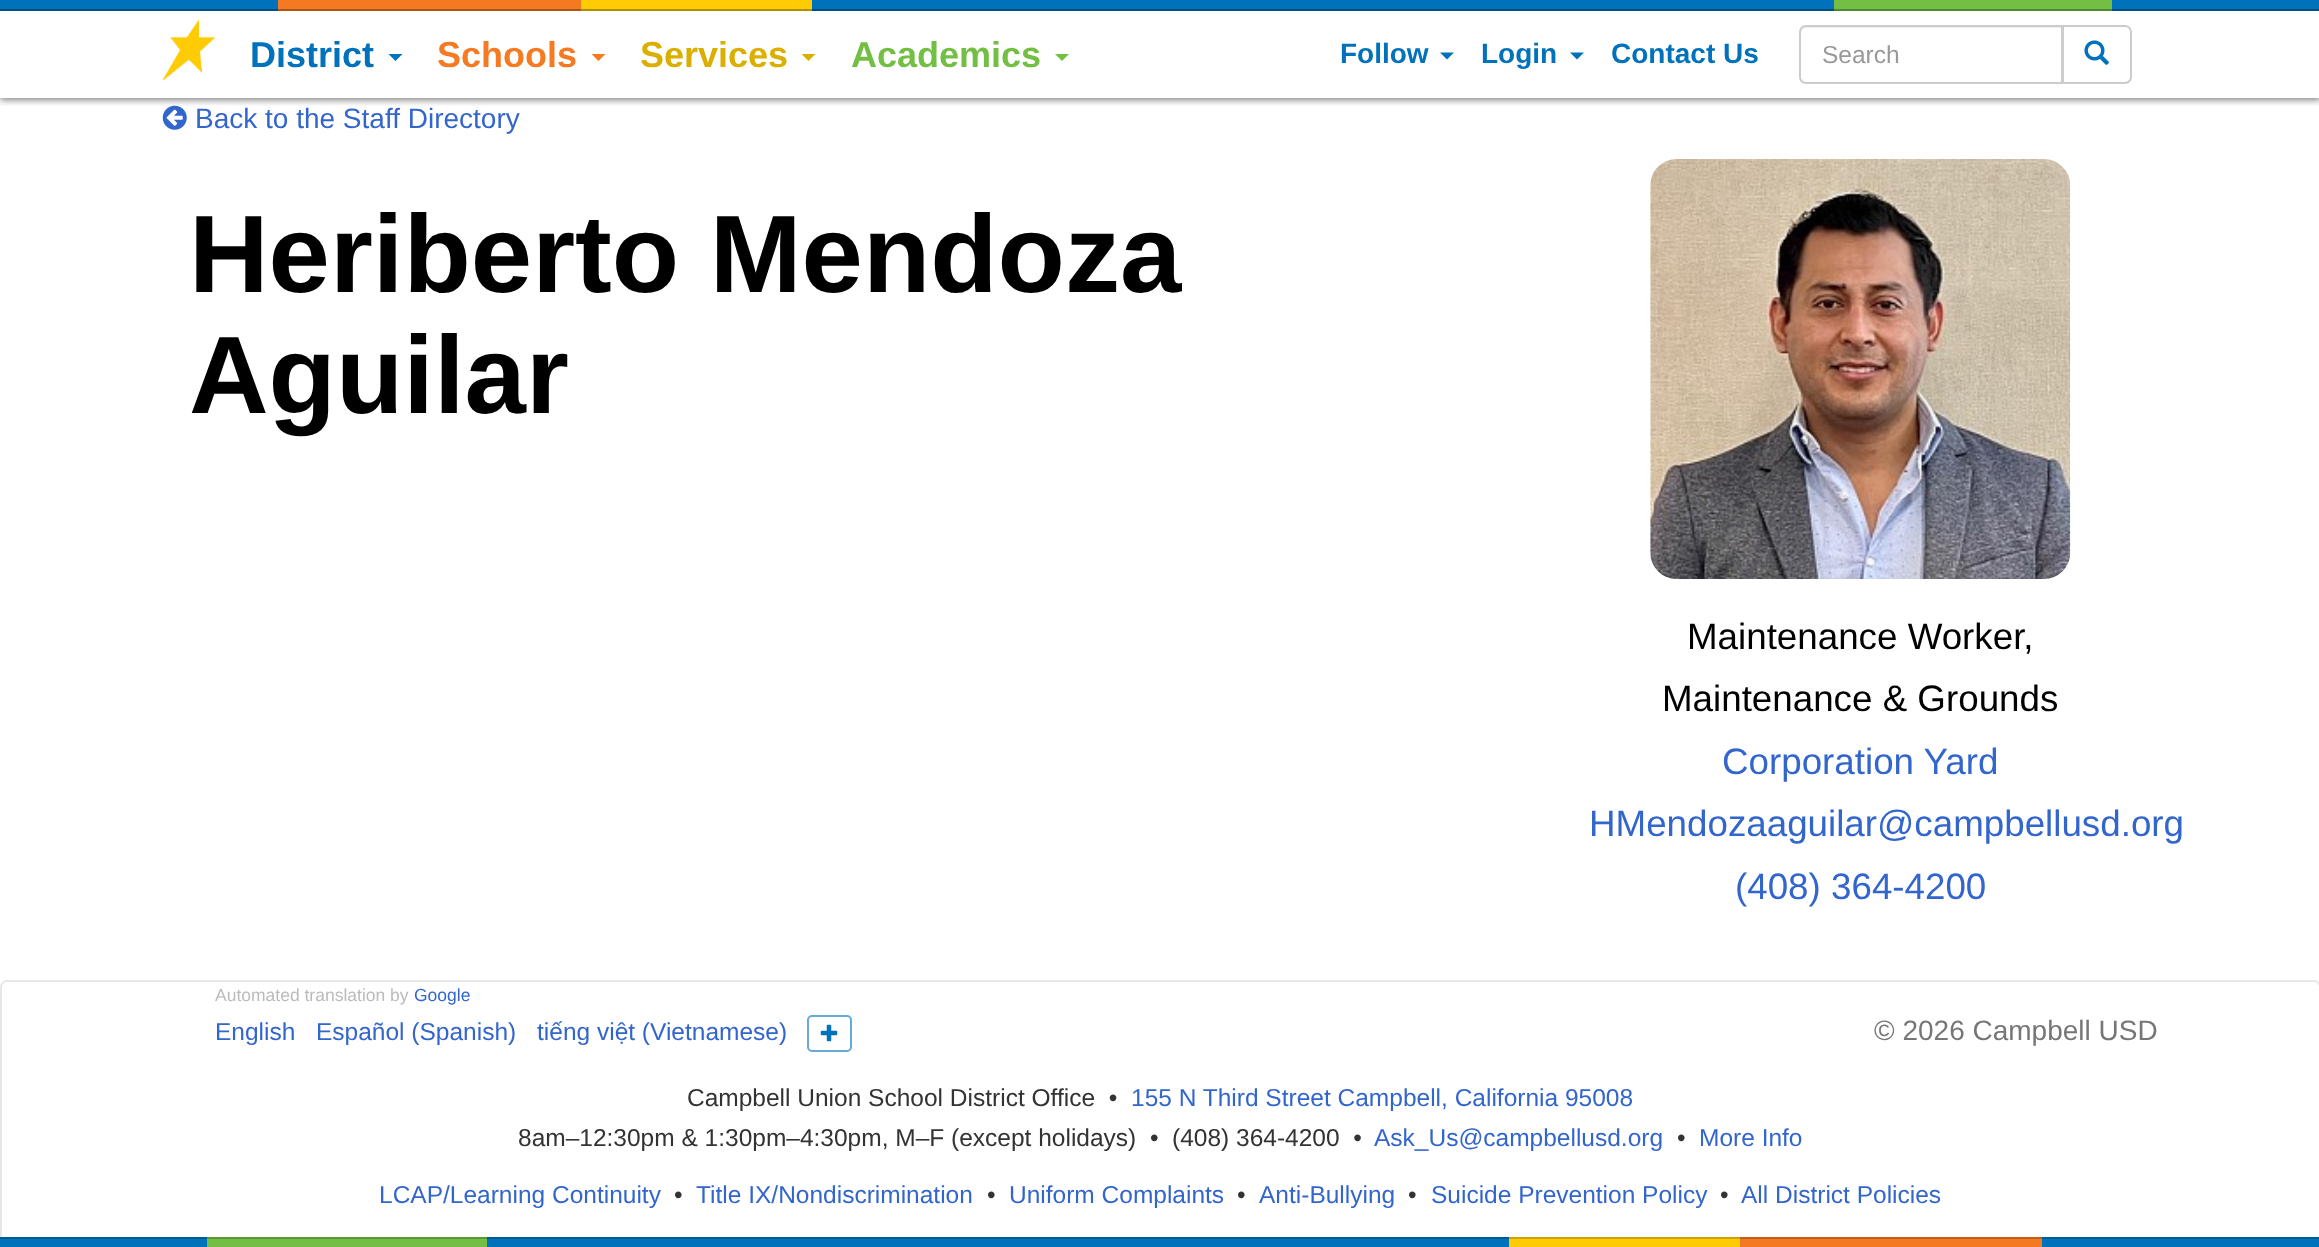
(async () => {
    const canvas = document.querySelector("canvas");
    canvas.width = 2319;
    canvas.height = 1247;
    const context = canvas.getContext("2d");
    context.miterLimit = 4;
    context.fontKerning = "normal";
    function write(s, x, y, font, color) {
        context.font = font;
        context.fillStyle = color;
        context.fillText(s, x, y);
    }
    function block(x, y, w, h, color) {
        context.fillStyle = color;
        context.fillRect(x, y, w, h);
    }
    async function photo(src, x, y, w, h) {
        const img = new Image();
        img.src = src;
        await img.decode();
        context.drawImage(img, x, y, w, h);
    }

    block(0, 0, 2319, 1247, "rgb(255, 255, 255)");
    await photo("media/3.png", 162, 105, 25, 25);
    context.save();
    context.beginPath();
    context.rect(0, 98, 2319, 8);
    context.clip();
    context.fillStyle = "rgba(0, 0, 0, 0.5)";
    context.filter = "blur(3.5px)";
    context.beginPath();
    context.rect(0, 2, 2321, 98);
    context.fill();
    context.filter = "none";
    context.restore();
    block(0, 0, 278, 9, "rgb(0, 113, 187)");
    block(0, 9, 278, 2, "rgb(0, 79, 131)");
    block(278, 0, 303, 9, "rgb(244, 121, 33)");
    block(278, 9, 303, 2, "rgb(171, 85, 23)");
    block(581, 0, 231, 9, "rgb(255, 203, 5)");
    block(581, 9, 231, 2, "rgb(179, 142, 4)");
    block(812, 0, 1022, 9, "rgb(0, 113, 187)");
    block(812, 9, 1022, 2, "rgb(0, 79, 131)");
    block(1834, 0, 278, 9, "rgb(114, 191, 68)");
    block(1834, 9, 278, 2, "rgb(80, 134, 48)");
    block(2112, 0, 207, 9, "rgb(0, 113, 187)");
    block(2112, 9, 207, 2, "rgb(0, 79, 131)");
    await photo("media/1.png", 162, 19, 54, 62);
    write("District", 250, 67, "bold 36px Liberation Sans", "rgb(0, 113, 187)");
    context.beginPath();
    context.moveTo(388.5, 54);
    context.lineTo(402.5, 54);
    context.lineTo(395.5, 61);
    context.closePath();
    context.fill();
    write("Schools", 437, 67, "bold 36px Liberation Sans", "rgb(245, 122, 34)");
    context.beginPath();
    context.moveTo(591.5, 54);
    context.lineTo(605.5, 54);
    context.lineTo(598.5, 61);
    context.closePath();
    context.fill();
    write("Services", 640, 67, "bold 36px Liberation Sans", "rgb(219, 175, 0)");
    context.beginPath();
    context.moveTo(801.5, 54);
    context.lineTo(815.5, 54);
    context.lineTo(808.5, 61);
    context.closePath();
    context.fill();
    write("Academics", 851, 67, "bold 36px Liberation Sans", "rgb(114, 191, 68)");
    context.beginPath();
    context.moveTo(1055, 54);
    context.lineTo(1069, 54);
    context.lineTo(1062, 61);
    context.closePath();
    context.fill();
    write("Follow", 1340, 63, "bold 28px Liberation Sans", "rgb(0, 113, 187)");
    context.beginPath();
    context.moveTo(1440, 52.5);
    context.lineTo(1454, 52.5);
    context.lineTo(1447, 59.5);
    context.closePath();
    context.fill();
    write("Login", 1481, 63, "bold 28px Liberation Sans", "rgb(0, 113, 187)");
    context.beginPath();
    context.moveTo(1570, 52.5);
    context.lineTo(1584, 52.5);
    context.lineTo(1577, 59.5);
    context.closePath();
    context.fill();
    write("Contact Us", 1611, 63, "bold 28px Liberation Sans", "rgb(0, 113, 187)");
    context.fillStyle = "rgb(236, 236, 236)";
    context.beginPath();
    context.moveTo(1806, 28);
    context.lineTo(2062, 28);
    context.lineTo(2062, 26);
    context.lineTo(1805, 26);
    context.bezierCurveTo(1801, 27, 1801, 30, 1801, 33);
    context.bezierCurveTo(1801, 30, 1803, 28, 1806, 28);
    context.closePath();
    context.fill();
    context.beginPath();
    context.roundRect(1800, 26, 262, 57, [6, 0, 0, 6]);
    context.strokeStyle = "rgb(204, 204, 204)";
    context.lineWidth = 2;
    context.stroke();
    write("Search", 1822, 63, "24.5px Liberation Sans", "rgb(153, 153, 153)");
    context.fillStyle = "rgb(255, 255, 255)";
    context.beginPath();
    context.roundRect(2063, 26, 68, 57, [0, 6, 6, 0]);
    context.fill();
    context.stroke();
    await photo("media/2.png", 2084, 40, 25, 25);
    write("Back to the Staff Directory", 195, 128, "28px Liberation Sans", "rgb(51, 102, 204)");
    write("Heriberto Mendoza", 189, 292, "bold 110.25px Liberation Sans", "rgb(0, 0, 0)");
    write("Aguilar", 189, 413, "bold 110.25px Liberation Sans", "rgb(0, 0, 0)");
    await photo("media/4.png", 1650, 159, 421, 420);
    write("Maintenance Worker,", 1687, 649, "36.75px Liberation Sans", "rgb(0, 0, 0)");
    write("Maintenance & Grounds", 1662, 711, "36.75px Liberation Sans", "rgb(0, 0, 0)");
    write("Corporation Yard", 1722, 774, "36.75px Liberation Sans", "rgb(51, 102, 204)");
    write("HMendozaaguilar@campbellusd.org", 1589, 836, "36.75px Liberation Sans", "rgb(51, 102, 204)");
    write("(408) 364-4200", 1735, 899, "36.75px Liberation Sans", "rgb(51, 102, 204)");
    context.beginPath();
    context.roundRect(1, 981, 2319, 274, 6);
    context.strokeStyle = "rgb(231, 231, 231)";
    context.stroke();
    write("Automated translation by", 215, 1001, "17.5px Liberation Sans", "rgb(187, 187, 187)");
    write("Google", 414, 1001, "17.5px Liberation Sans", "rgb(51, 102, 204)");
    write("English", 215, 1040, "24.5px Liberation Sans", "rgb(51, 102, 204)");
    write("Español (Spanish)", 316, 1040, "24.5px Liberation Sans", "rgb(51, 102, 204)");
    write("tiếng việt (Vietnamese)", 537, 1040, "24.5px Liberation Sans", "rgb(51, 102, 204)");
    context.beginPath();
    context.roundRect(808, 1016, 43, 35, 4);
    context.strokeStyle = "rgb(102, 170, 214)";
    context.stroke();
    await photo("media/5.png", 820, 1024, 18, 18);
    write("© 2026 Campbell USD", 1874, 1040, "28px Liberation Sans", "rgb(118, 118, 118)");
    write("Campbell Union School District Office  •", 687, 1106, "24.5px Liberation Sans", "rgb(51, 51, 51)");
    write("155 N Third Street Campbell, California 95008", 1131, 1106, "24.5px Liberation Sans", "rgb(51, 102, 204)");
    write("8am–12:30pm & 1:30pm–4:30pm, M–F (except holidays)  •  (408) 364-4200  •", 518, 1146, "24.5px Liberation Sans", "rgb(51, 51, 51)");
    write("Ask_Us@campbellusd.org", 1374, 1146, "24.5px Liberation Sans", "rgb(51, 102, 204)");
    write("•", 1677, 1146, "24.5px Liberation Sans", "rgb(51, 51, 51)");
    write("More Info", 1699, 1146, "24.5px Liberation Sans", "rgb(51, 102, 204)");
    write("LCAP/Learning Continuity", 379, 1203, "24.5px Liberation Sans", "rgb(51, 102, 204)");
    write("•", 674, 1203, "24.5px Liberation Sans", "rgb(51, 51, 51)");
    write("Title IX/Nondiscrimination", 696, 1203, "24.5px Liberation Sans", "rgb(51, 102, 204)");
    write("•", 987, 1203, "24.5px Liberation Sans", "rgb(51, 51, 51)");
    write("Uniform Complaints", 1009, 1203, "24.5px Liberation Sans", "rgb(51, 102, 204)");
    write("•", 1237, 1203, "24.5px Liberation Sans", "rgb(51, 51, 51)");
    write("Anti-Bullying", 1259, 1203, "24.5px Liberation Sans", "rgb(51, 102, 204)");
    write("•", 1408, 1203, "24.5px Liberation Sans", "rgb(51, 51, 51)");
    write("Suicide Prevention Policy", 1431, 1203, "24.5px Liberation Sans", "rgb(51, 102, 204)");
    write("•", 1720, 1203, "24.5px Liberation Sans", "rgb(51, 51, 51)");
    write("All District Policies", 1741, 1203, "24.5px Liberation Sans", "rgb(51, 102, 204)");
    block(2042, 1237, 277, 10, "rgb(0, 113, 187)");
    block(1740, 1237, 302, 10, "rgb(244, 121, 33)");
    block(1509, 1237, 231, 10, "rgb(255, 203, 5)");
    block(487, 1237, 1022, 10, "rgb(0, 113, 187)");
    block(207, 1237, 280, 10, "rgb(114, 191, 68)");
    block(0, 1237, 207, 10, "rgb(0, 113, 187)");
    block(0, 1237, 2319, 2, "rgba(0, 0, 0, 0.2)");
})();
